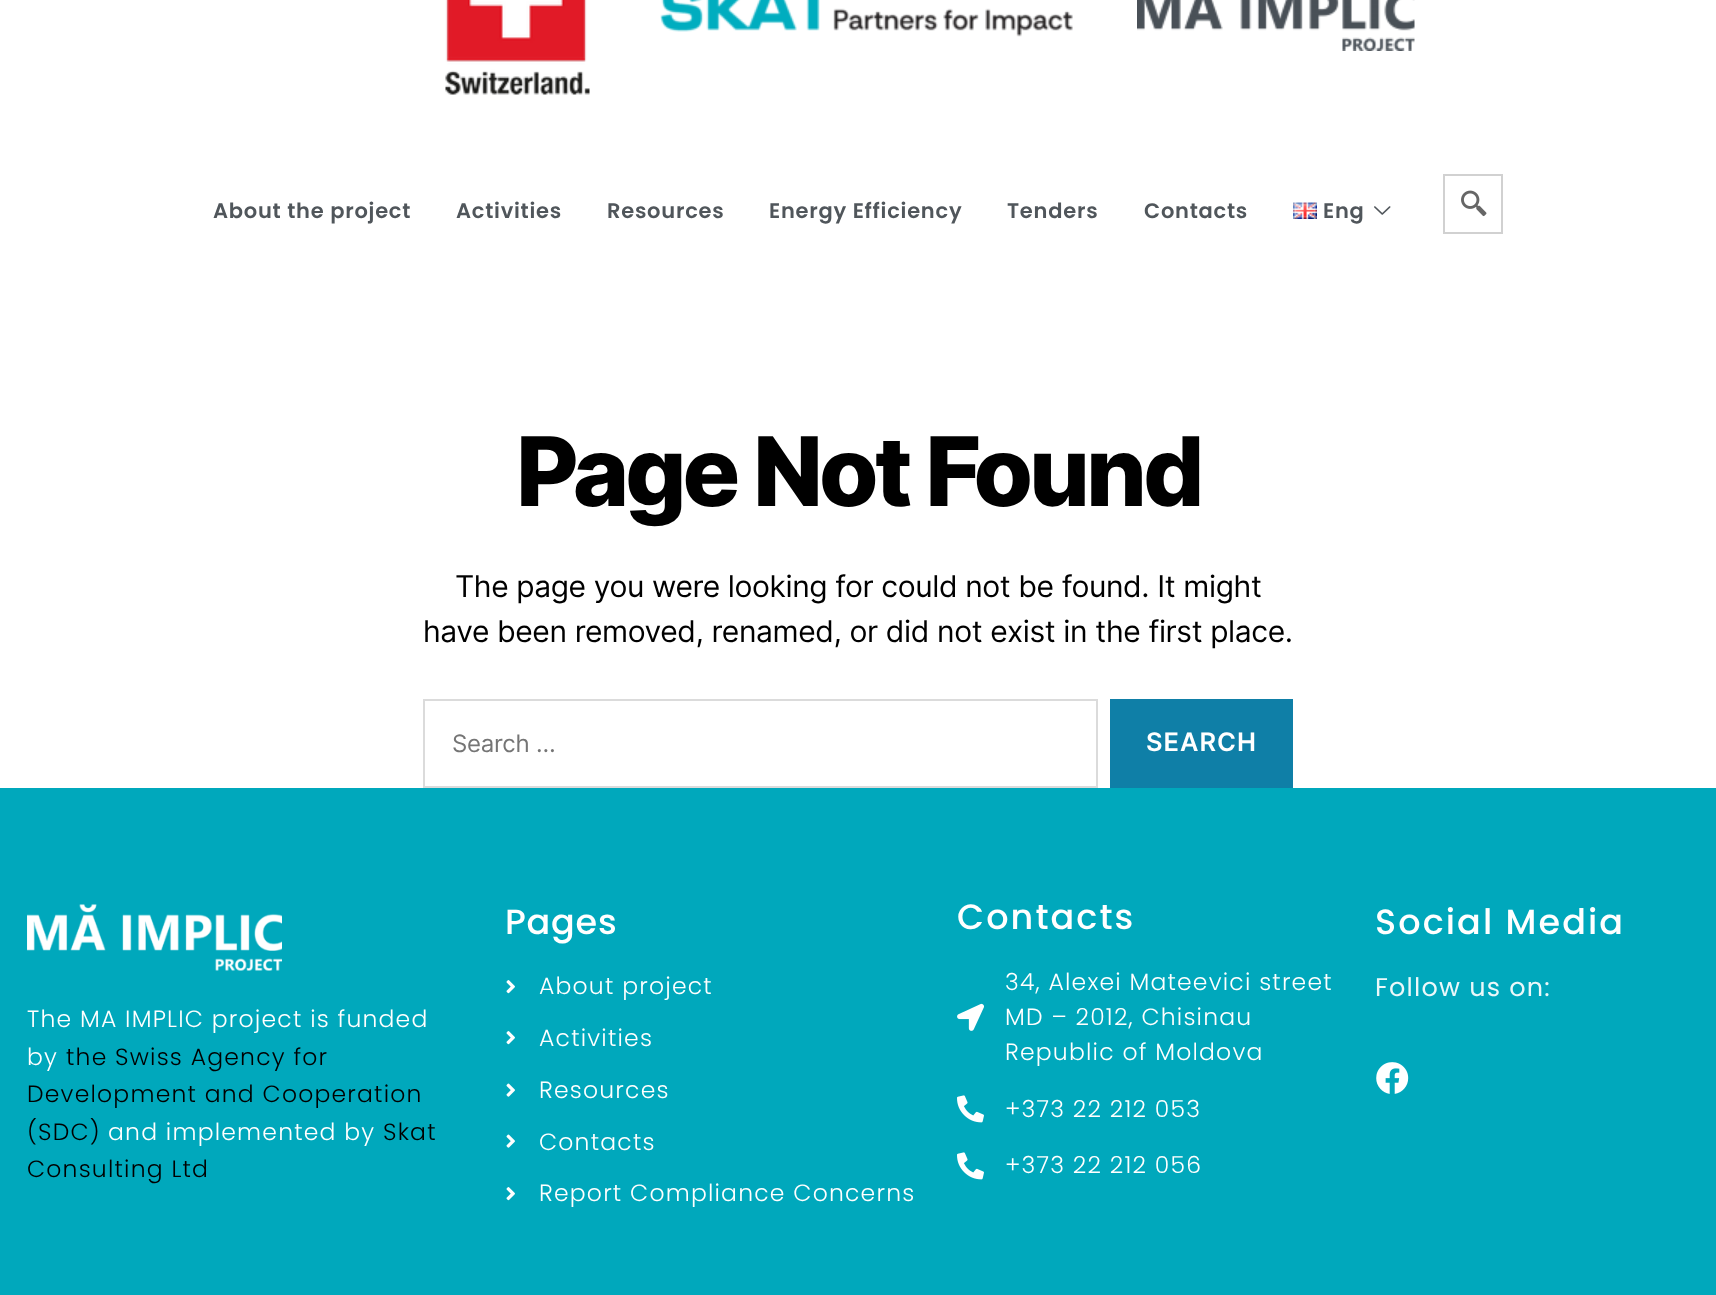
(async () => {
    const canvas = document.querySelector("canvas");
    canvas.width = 1716;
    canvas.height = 1295;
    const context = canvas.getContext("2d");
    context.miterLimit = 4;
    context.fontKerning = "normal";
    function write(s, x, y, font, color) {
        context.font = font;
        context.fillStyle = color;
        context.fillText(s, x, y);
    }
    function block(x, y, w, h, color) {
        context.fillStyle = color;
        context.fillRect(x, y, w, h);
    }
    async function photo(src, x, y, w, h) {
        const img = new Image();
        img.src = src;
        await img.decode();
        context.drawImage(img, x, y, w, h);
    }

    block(0, 0, 1716, 1295, "rgb(255, 255, 255)");
    await photo("media/1.png", 445, 0, 145, 95);
    await photo("media/2.png", 660, 0, 413, 37);
    await photo("media/3.png", 1137, 0, 278, 51);
    context.letterSpacing = "0.75px";
    write("About the project", 213, 218, "600 21px Poppins", "rgb(80, 86, 91)");
    write("Activities", 456, 218, "600 21px Poppins", "rgb(80, 86, 91)");
    write("Resources", 607, 218, "600 21px Poppins", "rgb(80, 86, 91)");
    write("Energy Efficiency", 769, 218, "600 21px Poppins", "rgb(80, 86, 91)");
    write("Tenders", 1007, 218, "600 21px Poppins", "rgb(80, 86, 91)");
    write("Contacts", 1144, 218, "600 21px Poppins", "rgb(80, 86, 91)");
    await photo("media/4.png", 1293, 202, 24, 17);
    write("Eng", 1323, 218, "600 21px Poppins", "rgb(80, 86, 91)");
    await photo("media/5.png", 1374, 206, 17, 9);
    context.strokeStyle = "rgb(209, 209, 209)";
    context.lineWidth = 2;
    context.strokeRect(1444, 175, 58, 58);
    await photo("media/6.png", 1461, 190, 26, 27);
    context.letterSpacing = "-4px";
    write("Page Not Found", 516, 506, "800 96px Inter", "rgb(0, 0, 0)");
    context.letterSpacing = "-0.4px";
    write("The page you were looking for could not be found. It might", 455, 597, "30px Inter", "rgb(0, 0, 0)");
    write("have been removed, renamed, or did not exist in the first place.", 423, 642, "30px Inter", "rgb(0, 0, 0)");
    context.strokeStyle = "rgb(219, 219, 219)";
    context.strokeRect(424, 700, 673, 87);
    context.letterSpacing = "-0.25px";
    write("Search …", 452, 752, "24px Inter", "rgb(117, 117, 117)");
    block(1110, 699, 183, 89, "rgb(15, 127, 167)");
    context.letterSpacing = "1px";
    write("SEARCH", 1146, 751, "600 25.5px Inter", "rgb(255, 255, 255)");
    block(0, 788, 1716, 507, "rgb(0, 168, 188)");
    await photo("media/7.png", 27, 904, 255, 67);
    context.letterSpacing = "1.2px";
    write("The MA IMPLIC project is funded", 27, 1027, "300 23.5px Poppins", "rgb(255, 255, 255)");
    write("by", 27, 1065, "300 23.5px Poppins", "rgb(255, 255, 255)");
    write("the Swiss Agency for", 66, 1065, "300 23.5px Poppins", "rgb(0, 0, 0)");
    write("Development and Cooperation", 27, 1102, "300 23.5px Poppins", "rgb(0, 0, 0)");
    write("(SDC)", 27, 1140, "300 23.5px Poppins", "rgb(0, 0, 0)");
    write("and implemented by", 108, 1140, "300 23.5px Poppins", "rgb(255, 255, 255)");
    write("Skat", 383, 1140, "300 23.5px Poppins", "rgb(0, 0, 0)");
    write("Consulting Ltd", 27, 1177, "300 23.5px Poppins", "rgb(0, 0, 0)");
    context.letterSpacing = "0.75px";
    write("Pages", 505, 934, "500 35px Poppins", "rgb(255, 255, 255)");
    await photo("media/8.png", 506, 980, 9, 14);
    context.letterSpacing = "1.2px";
    write("About project", 539, 994, "300 23.5px Poppins", "rgb(255, 255, 255)");
    await photo("media/8.png", 506, 1031, 9, 14);
    write("Activities", 539, 1046, "300 23.5px Poppins", "rgb(255, 255, 255)");
    await photo("media/9.png", 506, 1083, 9, 14);
    write("Resources", 539, 1098, "300 23.5px Poppins", "rgb(255, 255, 255)");
    await photo("media/9.png", 506, 1134, 9, 14);
    write("Contacts", 539, 1150, "300 23.5px Poppins", "rgb(255, 255, 255)");
    await photo("media/8.png", 506, 1187, 9, 14);
    write("Report Compliance Concerns", 539, 1201, "300 23.5px Poppins", "rgb(255, 255, 255)");
    context.letterSpacing = "2.1px";
    write("Contacts", 957, 929, "500 35px Poppins", "rgb(255, 255, 255)");
    await photo("media/10.png", 957, 1003, 27, 28);
    context.letterSpacing = "1.2px";
    write("34, Alexei Mateevici street", 1005, 990, "300 23.5px Poppins", "rgb(255, 255, 255)");
    write("MD – 2012, Chisinau", 1005, 1025, "300 23.5px Poppins", "rgb(255, 255, 255)");
    write("Republic of Moldova", 1005, 1060, "300 23.5px Poppins", "rgb(255, 255, 255)");
    await photo("media/11.png", 957, 1095, 27, 28);
    write("+373 22 212 053", 1005, 1117, "300 23.5px Poppins", "rgb(255, 255, 255)");
    await photo("media/11.png", 957, 1152, 27, 28);
    write("+373 22 212 056", 1005, 1173, "300 23.5px Poppins", "rgb(255, 255, 255)");
    context.letterSpacing = "2.1px";
    write("Social Media", 1375, 934, "500 35px Poppins", "rgb(255, 255, 255)");
    context.letterSpacing = "1.2px";
    write("Follow us on:", 1375, 996, "25.5px Poppins", "rgb(235, 248, 250)");
    await photo("media/12.png", 1376, 1062, 33, 32);
})();
